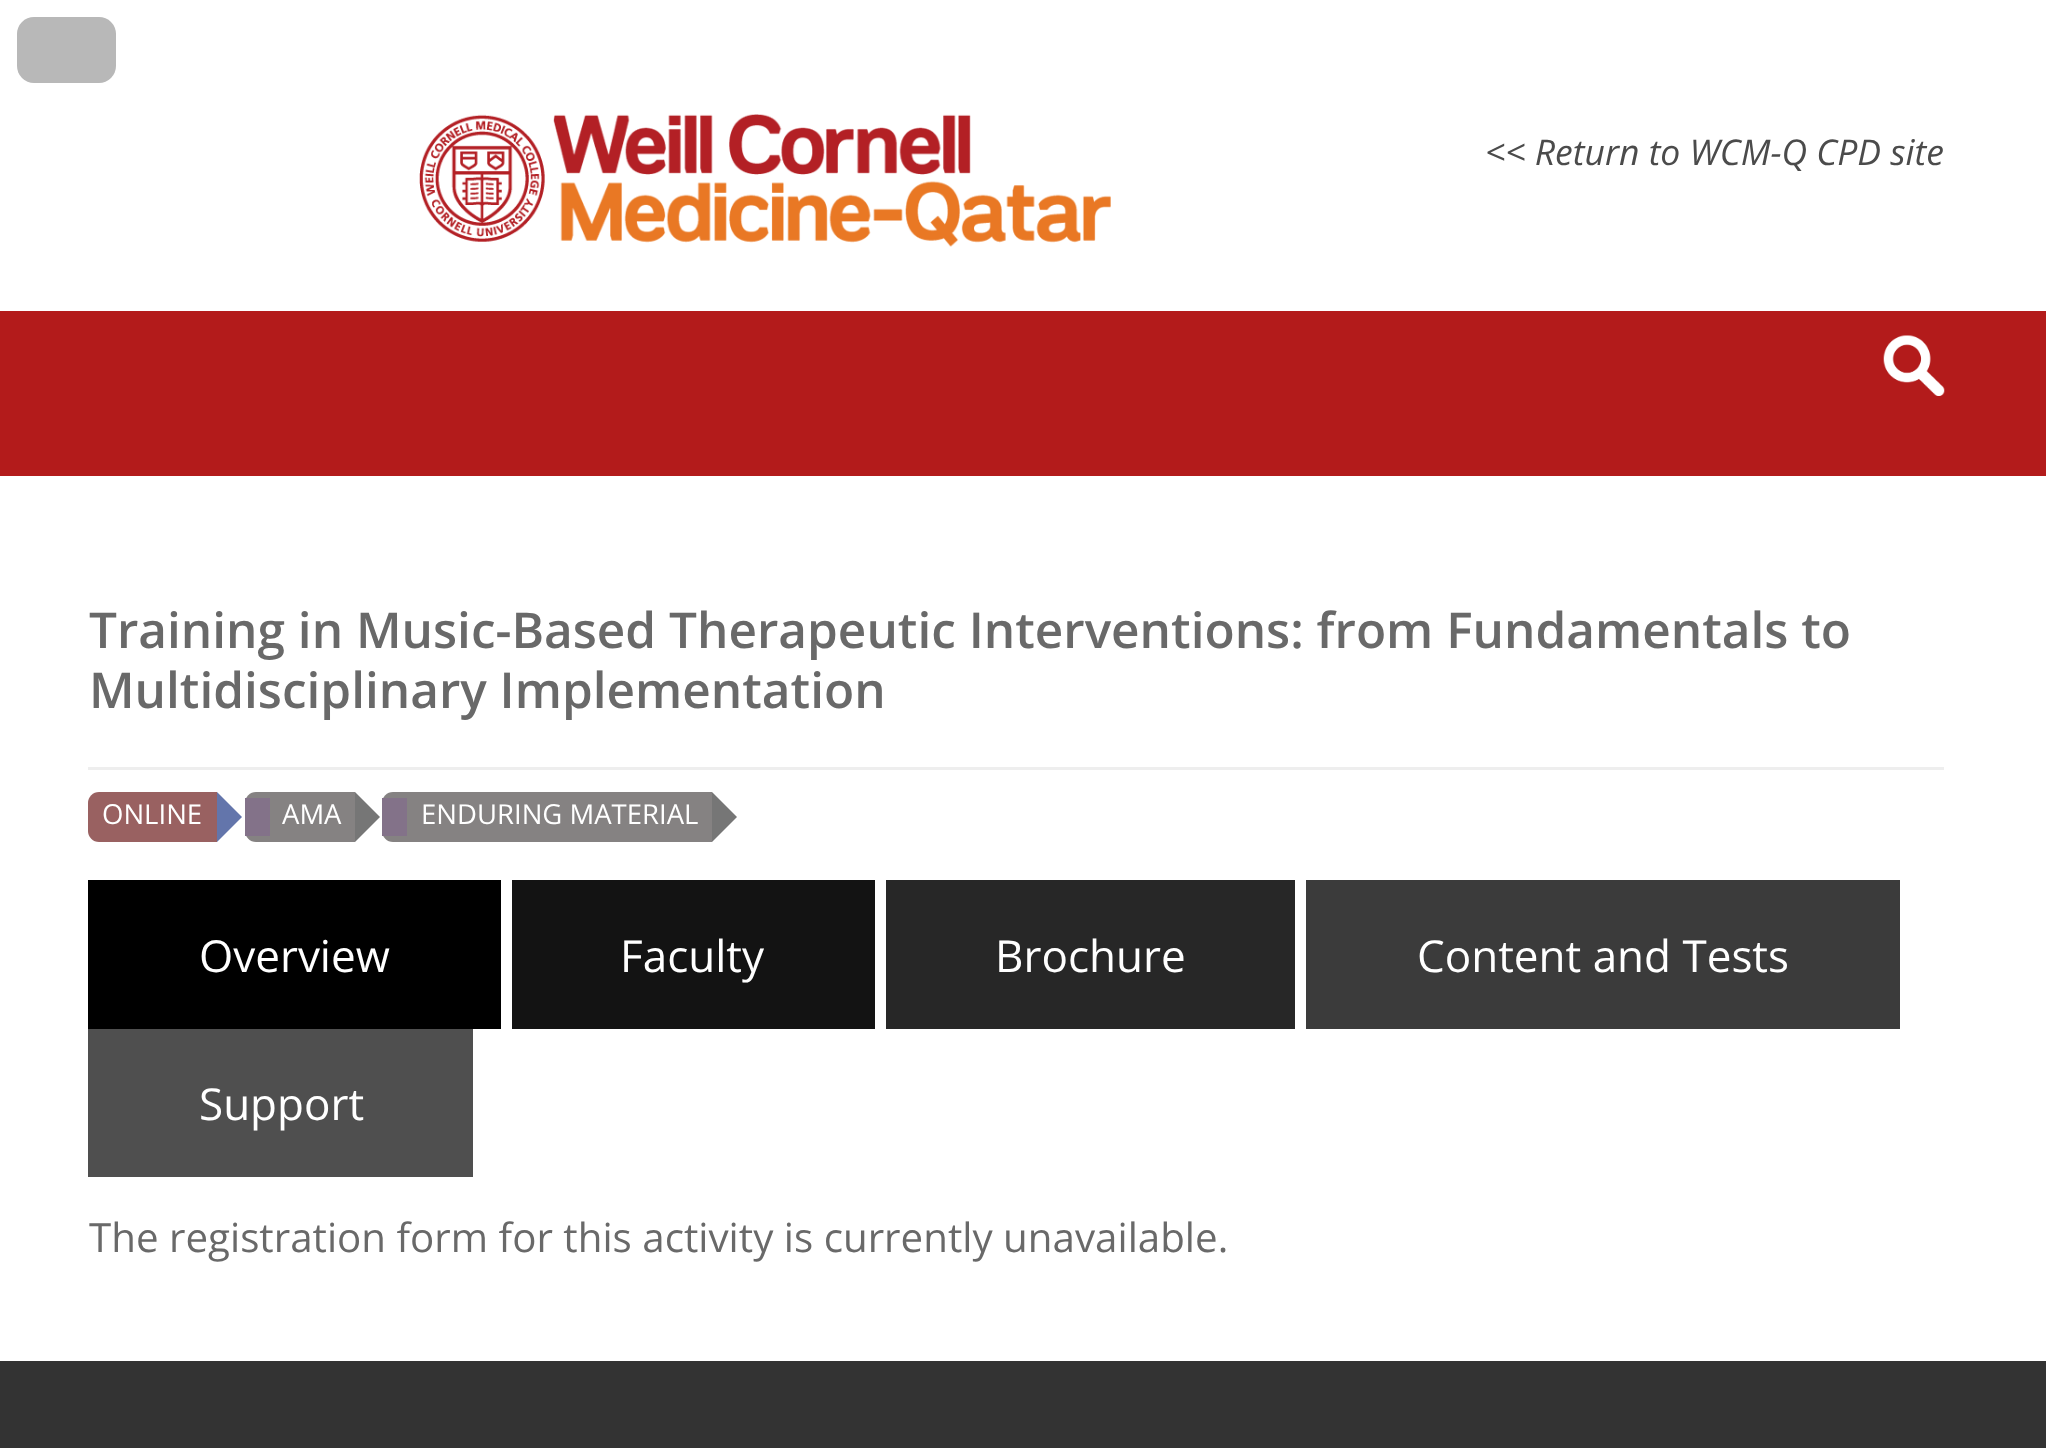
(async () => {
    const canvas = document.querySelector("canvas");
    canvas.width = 2046;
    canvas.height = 1448;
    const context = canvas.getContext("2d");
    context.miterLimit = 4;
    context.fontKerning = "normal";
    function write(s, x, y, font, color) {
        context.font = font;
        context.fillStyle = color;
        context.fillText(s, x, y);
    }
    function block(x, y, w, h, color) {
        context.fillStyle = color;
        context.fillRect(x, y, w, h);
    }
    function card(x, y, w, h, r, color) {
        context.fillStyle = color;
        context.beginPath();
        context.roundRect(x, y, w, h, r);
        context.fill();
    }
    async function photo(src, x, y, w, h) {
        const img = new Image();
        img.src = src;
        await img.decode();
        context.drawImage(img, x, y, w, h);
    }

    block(0, 0, 2046, 1448, "rgb(255, 255, 255)");
    card(17, 17, 99, 66, 17, "rgb(184, 184, 184)");
    await photo("media/1.png", 419, 114, 692, 133);
    write("<< Return to WCM-Q CPD site", 1485, 165, "italic 35.5px Open Sans", "rgb(75, 75, 75)");
    block(0, 311, 2046, 165, "rgb(179, 27, 27)");
    await photo("media/2.png", 1883, 335, 62, 61);
    write("Training in Music-Based Therapeutic Interventions: from Fundamentals to", 89, 648, "600 49.5px Open Sans", "rgb(105, 105, 105)");
    write("Multidisciplinary Implementation", 89, 708, "600 49.5px Open Sans", "rgb(105, 105, 105)");
    block(88, 767, 1856, 3, "rgb(238, 238, 238)");
    context.fillStyle = "rgb(153, 97, 97)";
    context.beginPath();
    context.roundRect(88, 792, 129, 50, [11, 0, 0, 11]);
    context.fill();
    write("ONLINE", 102, 824, "27.5px Open Sans", "rgb(255, 255, 255)");
    context.fillStyle = "rgb(99, 117, 171)";
    context.beginPath();
    context.moveTo(217, 842);
    context.lineTo(217, 792);
    context.lineTo(242, 817);
    context.closePath();
    context.fill();
    context.fillStyle = "rgb(133, 130, 130)";
    context.beginPath();
    context.roundRect(245, 792, 110, 50, [11, 0, 0, 11]);
    context.fill();
    block(245, 798, 25, 38, "rgb(131, 114, 137)");
    write("AMA", 282, 824, "27.5px Open Sans", "rgb(255, 255, 255)");
    context.fillStyle = "rgb(118, 118, 118)";
    context.beginPath();
    context.moveTo(355, 842);
    context.lineTo(355, 792);
    context.lineTo(380, 817);
    context.closePath();
    context.fill();
    context.fillStyle = "rgb(133, 130, 130)";
    context.beginPath();
    context.roundRect(382, 792, 330, 50, [11, 0, 0, 11]);
    context.fill();
    block(382, 798, 25, 38, "rgb(131, 114, 137)");
    write("ENDURING MATERIAL", 421, 824, "27.5px Open Sans", "rgb(255, 255, 255)");
    context.fillStyle = "rgb(118, 118, 118)";
    context.beginPath();
    context.moveTo(712, 842);
    context.lineTo(712, 792);
    context.lineTo(737, 817);
    context.closePath();
    context.fill();
    block(88, 880, 413, 149, "rgb(0, 0, 0)");
    write("Overview", 199, 972, "44px Open Sans", "rgb(255, 255, 255)");
    block(512, 880, 363, 149, "rgb(19, 19, 19)");
    write("Faculty", 620, 972, "44px Open Sans", "rgb(255, 255, 255)");
    block(886, 880, 409, 149, "rgb(39, 39, 39)");
    write("Brochure", 995, 972, "44px Open Sans", "rgb(255, 255, 255)");
    block(1306, 880, 594, 149, "rgb(59, 59, 59)");
    write("Content and Tests", 1417, 972, "44px Open Sans", "rgb(255, 255, 255)");
    block(88, 1029, 385, 148, "rgb(79, 79, 79)");
    write("Support", 199, 1120, "44px Open Sans", "rgb(255, 255, 255)");
    write("The registration form for this activity is currently unavailable.", 89, 1252, "40.3px Open Sans", "rgb(105, 105, 105)");
    block(0, 1361, 2046, 87, "rgb(51, 51, 51)");
})();
